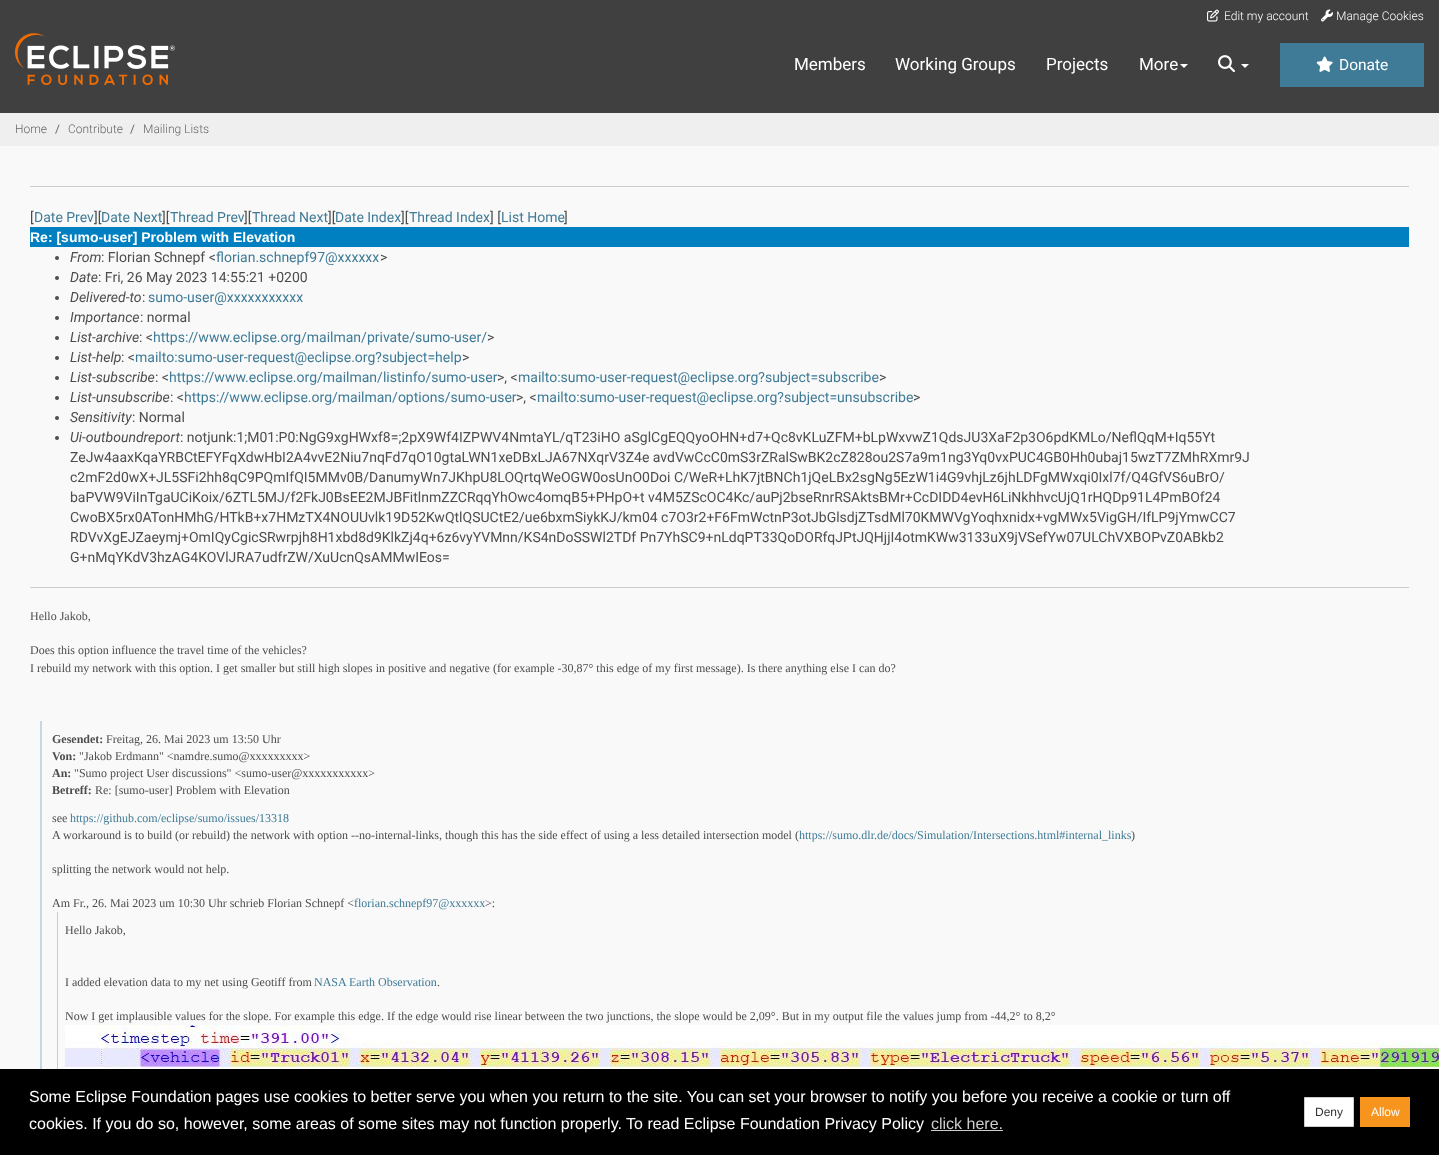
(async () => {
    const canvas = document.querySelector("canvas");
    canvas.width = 1439;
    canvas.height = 1155;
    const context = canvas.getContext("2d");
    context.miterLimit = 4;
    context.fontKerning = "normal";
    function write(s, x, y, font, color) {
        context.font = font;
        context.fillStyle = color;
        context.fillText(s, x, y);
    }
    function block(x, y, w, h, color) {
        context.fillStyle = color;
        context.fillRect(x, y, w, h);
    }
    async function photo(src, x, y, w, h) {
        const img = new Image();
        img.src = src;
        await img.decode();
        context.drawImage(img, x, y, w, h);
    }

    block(0, 0, 1439, 1155, "rgb(249, 249, 249)");
    block(0, 0, 1439, 113, "rgb(64, 64, 64)");
    await photo("media/1.png", 1207, 9, 12, 13);
    write("Edit my account", 1224, 20, "300 12px Roboto", "rgb(255, 255, 255)");
    await photo("media/2.png", 1321, 9, 12, 13);
    write("Manage Cookies", 1336, 20, "300 12px Roboto", "rgb(255, 255, 255)");
    await photo("media/3.png", 15, 33, 160, 52);
    write("Members", 794, 70, "17px Roboto", "rgb(255, 255, 255)");
    write("Working Groups", 895, 70, "17px Roboto", "rgb(255, 255, 255)");
    write("Projects", 1046, 70, "17px Roboto", "rgb(255, 255, 255)");
    write("More", 1139, 70, "17px Roboto", "rgb(255, 255, 255)");
    context.beginPath();
    context.moveTo(1180, 64);
    context.lineTo(1188, 64);
    context.lineTo(1184, 68);
    context.closePath();
    context.fill();
    await photo("media/4.png", 1218, 55, 17, 18);
    context.beginPath();
    context.moveTo(1241, 64);
    context.lineTo(1249, 64);
    context.lineTo(1245, 68);
    context.closePath();
    context.fill();
    block(1280, 43, 144, 44, "rgb(63, 123, 150)");
    await photo("media/5.png", 1316, 56, 17, 16);
    write("Donate", 1339, 70, "15.5px Roboto", "rgb(255, 255, 255)");
    block(0, 113, 1439, 33, "rgb(239, 239, 239)");
    write("Home", 15, 133, "300 12px Roboto", "rgb(101, 102, 104)");
    write("/", 55, 133, "12px Roboto", "rgb(101, 102, 104)");
    write("Contribute", 68, 133, "300 12px Roboto", "rgb(101, 102, 104)");
    write("/", 130, 133, "12px Roboto", "rgb(101, 102, 104)");
    write("Mailing Lists", 143, 133, "300 12px Roboto", "rgb(101, 102, 104)");
    block(30, 186, 1379, 1, "rgb(204, 204, 204)");
    write("[", 30, 222, "14px Roboto", "rgb(76, 77, 78)");
    write("Date Prev", 34, 222, "14px Roboto", "rgb(63, 123, 150)");
    write("][", 94, 222, "14px Roboto", "rgb(76, 77, 78)");
    write("Date Next", 101, 222, "14px Roboto", "rgb(63, 123, 150)");
    write("][", 162, 222, "14px Roboto", "rgb(76, 77, 78)");
    write("Thread Prev", 170, 222, "14px Roboto", "rgb(63, 123, 150)");
    write("][", 244, 222, "14px Roboto", "rgb(76, 77, 78)");
    write("Thread Next", 252, 222, "14px Roboto", "rgb(63, 123, 150)");
    write("][", 328, 222, "14px Roboto", "rgb(76, 77, 78)");
    write("Date Index", 335, 222, "14px Roboto", "rgb(63, 123, 150)");
    write("][", 401, 222, "14px Roboto", "rgb(76, 77, 78)");
    write("Thread Index", 409, 222, "14px Roboto", "rgb(63, 123, 150)");
    write("] [", 490, 222, "14px Roboto", "rgb(76, 77, 78)");
    write("List Home", 501, 222, "14px Roboto", "rgb(63, 123, 150)");
    write("]", 564, 222, "14px Roboto", "rgb(76, 77, 78)");
    block(30, 227, 1379, 20, "rgb(0, 128, 192)");
    write("Re: [sumo-user] Problem with Elevation", 30, 242, "bold 14px Liberation Sans", "rgb(255, 255, 255)");
    context.fillStyle = "rgb(76, 77, 78)";
    context.beginPath();
    context.arc(57, 258, 2, 0, Math.PI * 2);
    context.fill();
    write("From", 70, 262, "italic 14px Roboto", "rgb(76, 77, 78)");
    write(": Florian Schnepf <", 101, 262, "14px Roboto", "rgb(76, 77, 78)");
    write("florian.schnepf97@xxxxxx", 216, 262, "14px Roboto", "rgb(63, 123, 150)");
    write(">", 380, 262, "14px Roboto", "rgb(76, 77, 78)");
    context.beginPath();
    context.arc(57, 278, 2, 0, Math.PI * 2);
    context.fill();
    write("Date", 70, 282, "italic 14px Roboto", "rgb(76, 77, 78)");
    write(": Fri, 26 May 2023 14:55:21 +0200", 98, 282, "14px Roboto", "rgb(76, 77, 78)");
    context.beginPath();
    context.arc(57, 298, 2, 0, Math.PI * 2);
    context.fill();
    write("Delivered-to", 70, 302, "italic 14px Roboto", "rgb(76, 77, 78)");
    write(":", 142, 302, "14px Roboto", "rgb(76, 77, 78)");
    write("sumo-user@xxxxxxxxxxx", 148, 302, "14px Roboto", "rgb(63, 123, 150)");
    context.fillStyle = "rgb(76, 77, 78)";
    context.beginPath();
    context.arc(57, 318, 2, 0, Math.PI * 2);
    context.fill();
    write("Importance", 70, 322, "italic 14px Roboto", "rgb(76, 77, 78)");
    write(": normal", 140, 322, "14px Roboto", "rgb(76, 77, 78)");
    context.beginPath();
    context.arc(57, 338, 2, 0, Math.PI * 2);
    context.fill();
    write("List-archive", 70, 342, "italic 14px Roboto", "rgb(76, 77, 78)");
    write(": <", 139, 342, "14px Roboto", "rgb(76, 77, 78)");
    write("https://www.eclipse.org/mailman/private/sumo-user/", 153, 342, "14px Roboto", "rgb(63, 123, 150)");
    write(">", 487, 342, "14px Roboto", "rgb(76, 77, 78)");
    context.beginPath();
    context.arc(57, 358, 2, 0, Math.PI * 2);
    context.fill();
    write("List-help", 70, 362, "italic 14px Roboto", "rgb(76, 77, 78)");
    write(": <", 121, 362, "14px Roboto", "rgb(76, 77, 78)");
    write("mailto:sumo-user-request@eclipse.org?subject=help", 135, 362, "14px Roboto", "rgb(63, 123, 150)");
    write(">", 462, 362, "14px Roboto", "rgb(76, 77, 78)");
    context.beginPath();
    context.arc(57, 378, 2, 0, Math.PI * 2);
    context.fill();
    write("List-subscribe", 70, 382, "italic 14px Roboto", "rgb(76, 77, 78)");
    write(": <", 155, 382, "14px Roboto", "rgb(76, 77, 78)");
    write("https://www.eclipse.org/mailman/listinfo/sumo-user", 169, 382, "14px Roboto", "rgb(63, 123, 150)");
    write(">, <", 497, 382, "14px Roboto", "rgb(76, 77, 78)");
    write("mailto:sumo-user-request@eclipse.org?subject=subscribe", 518, 382, "14px Roboto", "rgb(63, 123, 150)");
    write(">", 879, 382, "14px Roboto", "rgb(76, 77, 78)");
    context.beginPath();
    context.arc(57, 398, 2, 0, Math.PI * 2);
    context.fill();
    write("List-unsubscribe", 70, 402, "italic 14px Roboto", "rgb(76, 77, 78)");
    write(": <", 170, 402, "14px Roboto", "rgb(76, 77, 78)");
    write("https://www.eclipse.org/mailman/options/sumo-user", 184, 402, "14px Roboto", "rgb(63, 123, 150)");
    write(">, <", 516, 402, "14px Roboto", "rgb(76, 77, 78)");
    write("mailto:sumo-user-request@eclipse.org?subject=unsubscribe", 537, 402, "14px Roboto", "rgb(63, 123, 150)");
    write(">", 913, 402, "14px Roboto", "rgb(76, 77, 78)");
    context.beginPath();
    context.arc(57, 418, 2, 0, Math.PI * 2);
    context.fill();
    write("Sensitivity", 70, 422, "italic 14px Roboto", "rgb(76, 77, 78)");
    write(": Normal", 132, 422, "14px Roboto", "rgb(76, 77, 78)");
    context.beginPath();
    context.arc(57, 438, 2, 0, Math.PI * 2);
    context.fill();
    write("Ui-outboundreport", 70, 442, "italic 14px Roboto", "rgb(76, 77, 78)");
    write(": notjunk:1;M01:P0:NgG9xgHWxf8=;2pX9Wf4IZPWV4NmtaYL/qT23iHO aSglCgEQQyoOHN+d7+Qc8vKLuZFM+bLpWxvwZ1QdsJU3XaF2p3O6pdKMLo/NeflQqM+Iq55Yt", 180, 442, "14px Roboto", "rgb(76, 77, 78)");
    write("ZeJw4aaxKqaYRBCtEFYFqXdwHbI2A4vvE2Niu7nqFd7qO10gtaLWN1xeDBxLJA67NXqrV3Z4e avdVwCcC0mS3rZRalSwBK2cZ828ou2S7a9m1ng3Yq0vxPUC4GB0Hh0ubaj15wzT7ZMhRXmr9J", 70, 462, "14px Roboto", "rgb(76, 77, 78)");
    write("c2mF2d0wX+JL5SFi2hh8qC9PQmIfQI5MMv0B/DanumyWn7JKhpU8LOQrtqWeOGW0osUnO0Doi C/WeR+LhK7jtBNCh1jQeLBx2sgNg5EzW1i4G9vhjLz6jhLDFgMWxqi0Ixl7f/Q4GfVS6uBrO/", 70, 482, "14px Roboto", "rgb(76, 77, 78)");
    write("baPVW9ViInTgaUCiKoix/6ZTL5MJ/f2FkJ0BsEE2MJBFitlnmZZCRqqYhOwc4omqB5+PHpO+t v4M5ZScOC4Kc/auPj2bseRnrRSAktsBMr+CcDIDD4evH6LiNkhhvcUjQ1rHQDp91L4PmBOf24", 70, 502, "14px Roboto", "rgb(76, 77, 78)");
    write("CwoBX5rx0ATonHMhG/HTkB+x7HMzTX4NOUUvlk19D52KwQtlQSUCtE2/ue6bxmSiykKJ/km04 c7O3r2+F6FmWctnP3otJbGlsdjZTsdMl70KMWVgYoqhxnidx+vgMWx5VigGH/IfLP9jYmwCC7", 70, 522, "14px Roboto", "rgb(76, 77, 78)");
    write("RDVvXgEJZaeymj+OmIQyCgicSRwrpjh8H1xbd8d9KlkZj4q+6z6vyYVMnn/KS4nDoSSWl2TDf Pn7YhSC9+nLdqPT33QoDORfqJPtJQHjjI4otmKWw3133uX9jVSefYw07ULChVXBOPvZ0ABkb2", 70, 542, "14px Roboto", "rgb(76, 77, 78)");
    write("G+nMqYKdV3hzAG4KOVlJRA7udfrZW/XuUcnQsAMMwIEos=", 70, 562, "14px Roboto", "rgb(76, 77, 78)");
    block(30, 587, 1379, 1, "rgb(204, 204, 204)");
    write("Hello Jakob,", 30, 620, "12px Liberation Serif", "rgb(76, 77, 78)");
    write("Does this option influence the travel time of the vehicles?", 30, 654, "12px Liberation Serif", "rgb(76, 77, 78)");
    write("I rebuild my network with this option. I get smaller but still high slopes in positive and negative (for example -30,87° this edge of my first message). Is there anything else I can do?", 30, 672, "12px Liberation Serif", "rgb(76, 77, 78)");
    block(40, 721, 2, 348, "rgb(195, 217, 229)");
    write("Gesendet:", 52, 743, "bold 12px Liberation Serif", "rgb(76, 77, 78)");
    write("Freitag, 26. Mai 2023 um 13:50 Uhr", 106, 743, "12px Liberation Serif", "rgb(76, 77, 78)");
    write("Von:", 52, 760, "bold 12px Liberation Serif", "rgb(76, 77, 78)");
    write("\"Jakob Erdmann\" <namdre.sumo@xxxxxxxxx>", 79, 760, "12px Liberation Serif", "rgb(76, 77, 78)");
    write("An:", 52, 777, "bold 12px Liberation Serif", "rgb(76, 77, 78)");
    write("\"Sumo project User discussions\" <sumo-user@xxxxxxxxxxx>", 74, 777, "12px Liberation Serif", "rgb(76, 77, 78)");
    write("Betreff:", 52, 794, "bold 12px Liberation Serif", "rgb(76, 77, 78)");
    write("Re: [sumo-user] Problem with Elevation", 95, 794, "12px Liberation Serif", "rgb(76, 77, 78)");
    write("see", 52, 822, "12px Liberation Serif", "rgb(76, 77, 78)");
    write("https://github.com/eclipse/sumo/issues/13318", 70, 822, "12px Liberation Serif", "rgb(63, 123, 150)");
    write("A workaround is to build (or rebuild) the network with option --no-internal-links, though this has the side effect of using a less detailed intersection model (", 52, 839, "12px Liberation Serif", "rgb(76, 77, 78)");
    write("https://sumo.dlr.de/docs/Simulation/Intersections.html#internal_links", 799, 839, "12px Liberation Serif", "rgb(63, 123, 150)");
    write(")", 1131, 839, "12px Liberation Serif", "rgb(76, 77, 78)");
    write("splitting the network would not help.", 52, 873, "12px Liberation Serif", "rgb(76, 77, 78)");
    write("Am Fr., 26. Mai 2023 um 10:30 Uhr schrieb Florian Schnepf <", 52, 907, "12px Liberation Serif", "rgb(76, 77, 78)");
    write("florian.schnepf97@xxxxxx", 354, 907, "12px Liberation Serif", "rgb(63, 123, 150)");
    write(">:", 485, 907, "12px Liberation Serif", "rgb(76, 77, 78)");
    block(57, 912, 1, 157, "rgb(204, 204, 204)");
    write("Hello Jakob,", 65, 934, "12px Liberation Serif", "rgb(76, 77, 78)");
    write("I added elevation data to my net using Geotiff from", 65, 986, "12px Liberation Serif", "rgb(76, 77, 78)");
    write("NASA Earth Observation", 314, 986, "12px Liberation Serif", "rgb(63, 123, 150)");
    write(".", 437, 986, "12px Liberation Serif", "rgb(76, 77, 78)");
    write("Now I get implausible values for the slope. For example this edge. If the edge would rise linear between the two junctions, the slope would be 2,09°. But in my output file the values jump from -44,2° to 8,2°", 65, 1020, "12px Liberation Serif", "rgb(76, 77, 78)");
    await photo("media/6.png", 65, 1025, 1374, 44);
    block(0, 1069, 1439, 86, "rgb(0, 0, 0)");
    write("Some Eclipse Foundation pages use cookies to better serve you when you return to the site. You can set your browser to notify you before you receive a cookie or turn off", 29, 1102, "16px Liberation Sans", "rgb(255, 255, 255)");
    write("cookies. If you do so, however, some areas of some sites may not function properly. To read Eclipse Foundation Privacy Policy", 29, 1129, "16px Liberation Sans", "rgb(255, 255, 255)");
    write("click here.", 931, 1129, "16px Liberation Sans", "rgb(204, 204, 204)");
    block(931, 1130, 72, 1, "rgb(204, 204, 204)");
    context.fillStyle = "rgb(255, 255, 255)";
    context.beginPath();
    context.rect(1304.5, 1097.5, 49, 29);
    context.fill();
    context.strokeStyle = "rgb(204, 204, 204)";
    context.stroke();
    write("Deny", 1315, 1116, "12px Liberation Sans", "rgb(51, 51, 51)");
    block(1360, 1097, 50, 30, "rgb(247, 148, 30)");
    write("Allow", 1371, 1116, "12px Liberation Sans", "rgb(255, 255, 255)");
})();
